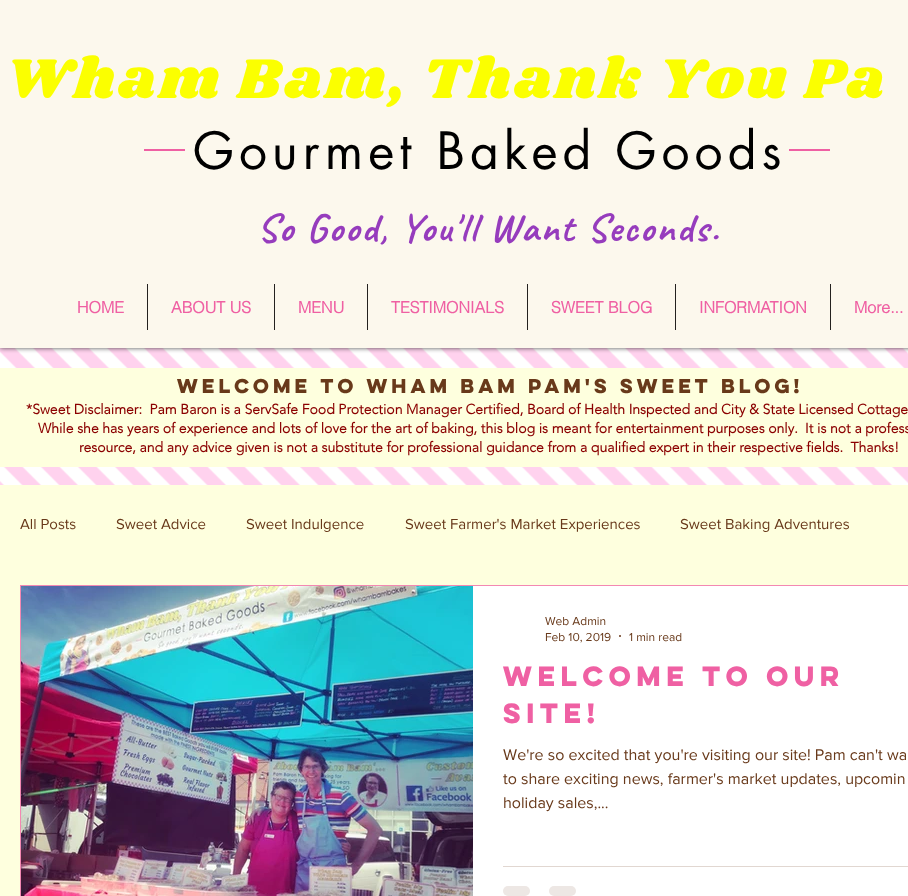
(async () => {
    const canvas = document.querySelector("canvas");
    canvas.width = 908;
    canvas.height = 896;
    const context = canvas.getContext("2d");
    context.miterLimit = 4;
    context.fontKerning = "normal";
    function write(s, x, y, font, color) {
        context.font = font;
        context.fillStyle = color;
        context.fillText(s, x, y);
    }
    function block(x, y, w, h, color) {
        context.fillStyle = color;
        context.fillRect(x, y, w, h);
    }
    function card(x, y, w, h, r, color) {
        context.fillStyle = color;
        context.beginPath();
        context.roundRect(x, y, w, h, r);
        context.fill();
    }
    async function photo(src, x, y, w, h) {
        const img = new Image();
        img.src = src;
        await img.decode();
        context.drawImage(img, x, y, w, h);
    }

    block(0, 0, 908, 896, "rgb(255, 255, 255)");
    await photo("media/2.png", 0, 348, 908, 137);
    context.fillStyle = "rgba(0, 0, 0, 0.7)";
    context.filter = "blur(2.5px)";
    context.beginPath();
    context.rect(0, 0, 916, 348);
    context.fill();
    context.filter = "none";
    block(0, 0, 908, 348, "rgb(252, 248, 237)");
    context.letterSpacing = "2.9px";
    write("Wham Bam, Thank You Pa", 5, 98, "58px Shrikhand", "rgb(251, 255, 0)");
    context.letterSpacing = "5px";
    write("Gourmet Baked Goods", 193, 169, "50px futura", "rgb(0, 0, 0)");
    context.letterSpacing = "2px";
    context.wordSpacing = "-0.5px";
    write("So Good, You'll Want Seconds.", 257, 241, "bold 40px Caveat", "rgb(150, 60, 189)");
    block(144, 149, 41, 2, "rgb(239, 96, 163)");
    block(789, 149, 41, 2, "rgb(239, 96, 163)");
    context.letterSpacing = "0px";
    context.wordSpacing = "0px";
    write("HOME", 77, 313, "bold 16px helvetica", "rgb(239, 96, 163)");
    block(147, 284, 1, 46, "rgb(36, 33, 31)");
    write("ABOUT US", 171, 313, "bold 16px helvetica", "rgb(239, 96, 163)");
    block(274, 284, 1, 46, "rgb(36, 33, 31)");
    write("MENU", 298, 313, "bold 16px helvetica", "rgb(239, 96, 163)");
    block(367, 284, 1, 46, "rgb(36, 33, 31)");
    write("TESTIMONIALS", 391, 313, "bold 16px helvetica", "rgb(239, 96, 163)");
    block(527, 284, 1, 46, "rgb(36, 33, 31)");
    write("SWEET BLOG", 551, 313, "bold 16px helvetica", "rgb(239, 96, 163)");
    block(675, 284, 1, 46, "rgb(36, 33, 31)");
    write("INFORMATION", 699, 313, "bold 16px helvetica", "rgb(239, 96, 163)");
    block(830, 284, 1, 46, "rgb(36, 33, 31)");
    write("More...", 854, 313, "bold 16px helvetica", "rgb(239, 96, 163)");
    block(0, 368, 908, 99, "rgb(254, 255, 222)");
    write("WELCOME TO WHAM BAM PAM'S SWEET BLOG!", 177, 393, "bold 18px 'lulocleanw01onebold'", "rgb(104, 57, 26)");
    write("*Sweet Disclaimer:  Pam Baron is a ServSafe Food Protection Manager Certified, Board of Health Inspected and City & State Licensed Cottage", 26, 414, "bold 14px 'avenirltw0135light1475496'", "rgb(139, 0, 0)");
    write("While she has years of experience and lots of love for the art of baking, this blog is meant for entertainment purposes only.  It is not a profess", 38, 433, "bold 14px 'avenirltw0135light1475496'", "rgb(139, 0, 0)");
    write("resource, and any advice given is not a substitute for professional guidance from a qualified expert in their respective fields.  Thanks!", 79, 452, "bold 14px 'avenirltw0135light1475496'", "rgb(139, 0, 0)");
    block(0, 485, 908, 411, "rgb(254, 255, 222)");
    write("All Posts", 20, 529, "15px 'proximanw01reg'", "rgb(104, 57, 26)");
    write("Sweet Advice", 116, 529, "15px 'proximanw01reg'", "rgb(104, 57, 26)");
    write("Sweet Indulgence", 246, 529, "15px 'proximanw01reg'", "rgb(104, 57, 26)");
    write("Sweet Farmer's Market Experiences", 405, 529, "15px 'proximanw01reg'", "rgb(104, 57, 26)");
    write("Sweet Baking Adventures", 680, 529, "15px 'proximanw01reg'", "rgb(104, 57, 26)");
    context.strokeStyle = "rgb(243, 136, 178)";
    context.strokeRect(20.5, 585.5, 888, 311);
    await photo("media/1.png", 21, 586, 452, 310);
    block(473, 586, 435, 310, "rgb(255, 255, 255)");
    write("Web Admin", 545, 625, "12px 'proximanw01reg'", "rgb(104, 57, 26)");
    write("Feb 10, 2019", 545, 641, "12px 'proximanw01reg'", "rgb(104, 57, 26)");
    context.beginPath();
    context.arc(620, 636, 1, 0, Math.PI * 2);
    context.fill();
    write("1 min read", 629, 641, "12px 'proximanw01reg'", "rgb(104, 57, 26)");
    write("Welcome to our", 503, 686, "bold 25px 'lulocleanw01onebold'", "rgb(239, 96, 163)");
    write("Site!", 503, 723, "bold 25px 'lulocleanw01onebold'", "rgb(239, 96, 163)");
    write("We're so excited that you're visiting our site! Pam can't wa", 503, 760, "16px 'proximanw01reg'", "rgb(104, 57, 26)");
    write("to share exciting news, farmer's market updates, upcomin", 503, 784, "16px 'proximanw01reg'", "rgb(104, 57, 26)");
    write("holiday sales,...", 503, 808, "16px 'proximanw01reg'", "rgb(104, 57, 26)");
    block(503, 866, 405, 1, "rgb(225, 215, 209)");
    card(503, 886, 27, 10, 5, "rgb(237, 231, 228)");
    card(549, 886, 27, 10, 5, "rgb(237, 231, 228)");
})();
